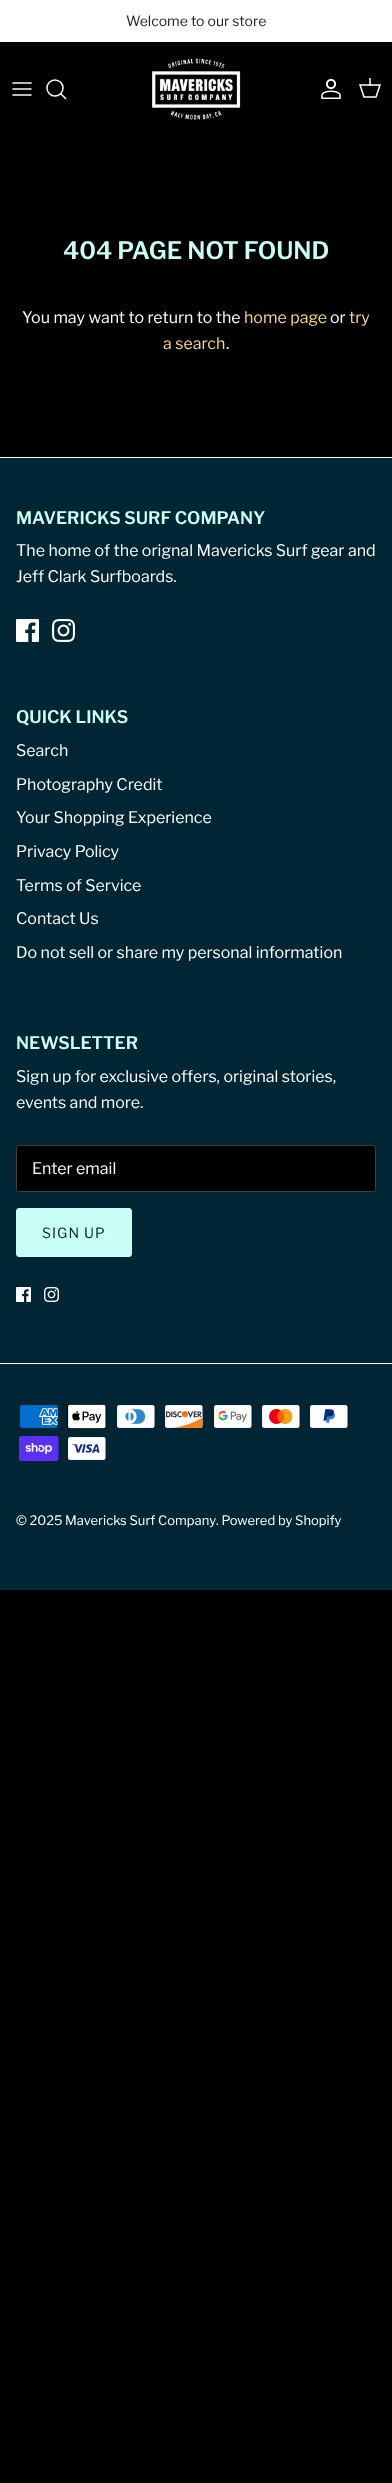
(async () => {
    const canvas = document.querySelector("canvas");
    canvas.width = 392;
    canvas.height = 2483;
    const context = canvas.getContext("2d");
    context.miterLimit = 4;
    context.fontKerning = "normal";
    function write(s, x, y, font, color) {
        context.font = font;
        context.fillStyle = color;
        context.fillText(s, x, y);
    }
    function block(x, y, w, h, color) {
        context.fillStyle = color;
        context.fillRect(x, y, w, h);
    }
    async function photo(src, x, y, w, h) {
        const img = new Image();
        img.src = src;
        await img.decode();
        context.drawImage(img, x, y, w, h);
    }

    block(0, 0, 392, 2483, "rgb(0, 0, 0)");
    block(0, 0, 392, 42, "rgb(255, 255, 255)");
    write("Welcome to our store", 126, 26, "14px Libre Franklin", "rgb(33, 33, 33)");
    await photo("media/1.png", 12, 82, 20, 14);
    context.beginPath();
    context.arc(55, 88, 8, 0, Math.PI * 2);
    context.strokeStyle = "rgb(255, 255, 255)";
    context.lineWidth = 1.5;
    context.stroke();
    context.beginPath();
    context.moveTo(61, 94);
    context.lineTo(65.5, 98.5);
    context.lineCap = "square";
    context.stroke();
    await photo("media/2.png", 152, 58, 89, 62);
    await photo("media/3.png", 321, 79, 20, 20);
    context.beginPath();
    context.moveTo(360, 85);
    context.lineTo(380, 85);
    context.lineTo(376, 97);
    context.lineTo(364, 97);
    context.closePath();
    context.lineCap = "butt";
    context.stroke();
    block(369, 78, 2, 8, "rgba(255, 255, 255, 0.75)");
    write("404 PAGE NOT FOUND", 63, 259, "600 24px Libre Franklin", "rgb(202, 255, 245)");
    write("You may want to return to the", 22, 323, "16px Libre Franklin", "rgb(255, 255, 255)");
    write("home page", 244, 323, "16px Libre Franklin", "rgb(255, 215, 129)");
    write("or", 330, 323, "16px Libre Franklin", "rgb(255, 255, 255)");
    write("try", 349, 323, "16px Libre Franklin", "rgb(255, 215, 129)");
    write("a search", 163, 349, "16px Libre Franklin", "rgb(255, 215, 129)");
    write(".", 226, 349, "16px Libre Franklin", "rgb(255, 255, 255)");
    block(0, 458, 392, 1132, "rgb(0, 38, 51)");
    block(0, 457, 392, 1, "rgb(255, 255, 255)");
    write("MAVERICKS SURF COMPANY", 16, 524, "600 17.25px Libre Franklin", "rgb(202, 255, 245)");
    write("The home of the orignal Mavericks Surf gear and", 16, 556, "16px Libre Franklin", "rgb(255, 255, 255)");
    write("Jeff Clark Surfboards.", 16, 582, "16px Libre Franklin", "rgb(255, 255, 255)");
    await photo("media/4.png", 16, 619, 23, 23);
    await photo("media/5.png", 52, 619, 23, 23);
    write("QUICK LINKS", 16, 723, "600 17.25px Libre Franklin", "rgb(202, 255, 245)");
    write("Search", 16, 756, "16px Libre Franklin", "rgb(255, 255, 255)");
    write("Photography Credit", 16, 790, "16px Libre Franklin", "rgb(255, 255, 255)");
    write("Your Shopping Experience", 16, 823, "16px Libre Franklin", "rgb(255, 255, 255)");
    write("Privacy Policy", 16, 857, "16px Libre Franklin", "rgb(255, 255, 255)");
    write("Terms of Service", 16, 891, "16px Libre Franklin", "rgb(255, 255, 255)");
    write("Contact Us", 16, 924, "16px Libre Franklin", "rgb(255, 255, 255)");
    write("Do not sell or share my personal information", 16, 958, "16px Libre Franklin", "rgb(255, 255, 255)");
    write("NEWSLETTER", 16, 1049, "600 17.25px Libre Franklin", "rgb(202, 255, 245)");
    write("Sign up for exclusive offers, original stories,", 16, 1082, "16px Libre Franklin", "rgb(255, 255, 255)");
    write("events and more.", 16, 1108, "16px Libre Franklin", "rgb(255, 255, 255)");
    context.fillStyle = "rgb(0, 0, 0)";
    context.beginPath();
    context.roundRect(16.5, 1145.5, 359, 46, 2.5);
    context.fill();
    context.strokeStyle = "rgb(64, 64, 64)";
    context.lineWidth = 1;
    context.stroke();
    write("Enter email", 32, 1174, "16px Libre Franklin", "rgb(255, 255, 255)");
    context.fillStyle = "rgb(202, 255, 245)";
    context.beginPath();
    context.roundRect(16.5, 1208.5, 115, 48, 2.5);
    context.fill();
    context.strokeStyle = "rgb(202, 255, 245)";
    context.stroke();
    context.letterSpacing = "1px";
    write("SIGN UP", 42, 1238, "14px Libre Franklin", "rgb(0, 38, 51)");
    await photo("media/6.png", 16, 1287, 15, 15);
    await photo("media/7.png", 44, 1287, 15, 15);
    block(0, 1363, 392, 1, "rgb(255, 255, 255)");
    await photo("media/8.png", 20, 1405, 38, 23);
    await photo("media/9.png", 67, 1404, 40, 25);
    await photo("media/10.png", 117, 1405, 38, 23);
    await photo("media/11.png", 165, 1405, 38, 23);
    await photo("media/12.png", 214, 1405, 38, 23);
    await photo("media/13.png", 262, 1405, 38, 23);
    await photo("media/14.png", 310, 1405, 38, 23);
    await photo("media/15.png", 19, 1436, 40, 25);
    await photo("media/16.png", 68, 1437, 38, 23);
    context.letterSpacing = "0px";
    write("© 2025", 16, 1525, "13px Libre Franklin", "rgb(255, 255, 255)");
    write("Mavericks Surf Company", 65, 1525, "13px Libre Franklin", "rgb(255, 255, 255)");
    write(". Powered by Shopify", 216, 1525, "13px Libre Franklin", "rgb(255, 255, 255)");
})();
